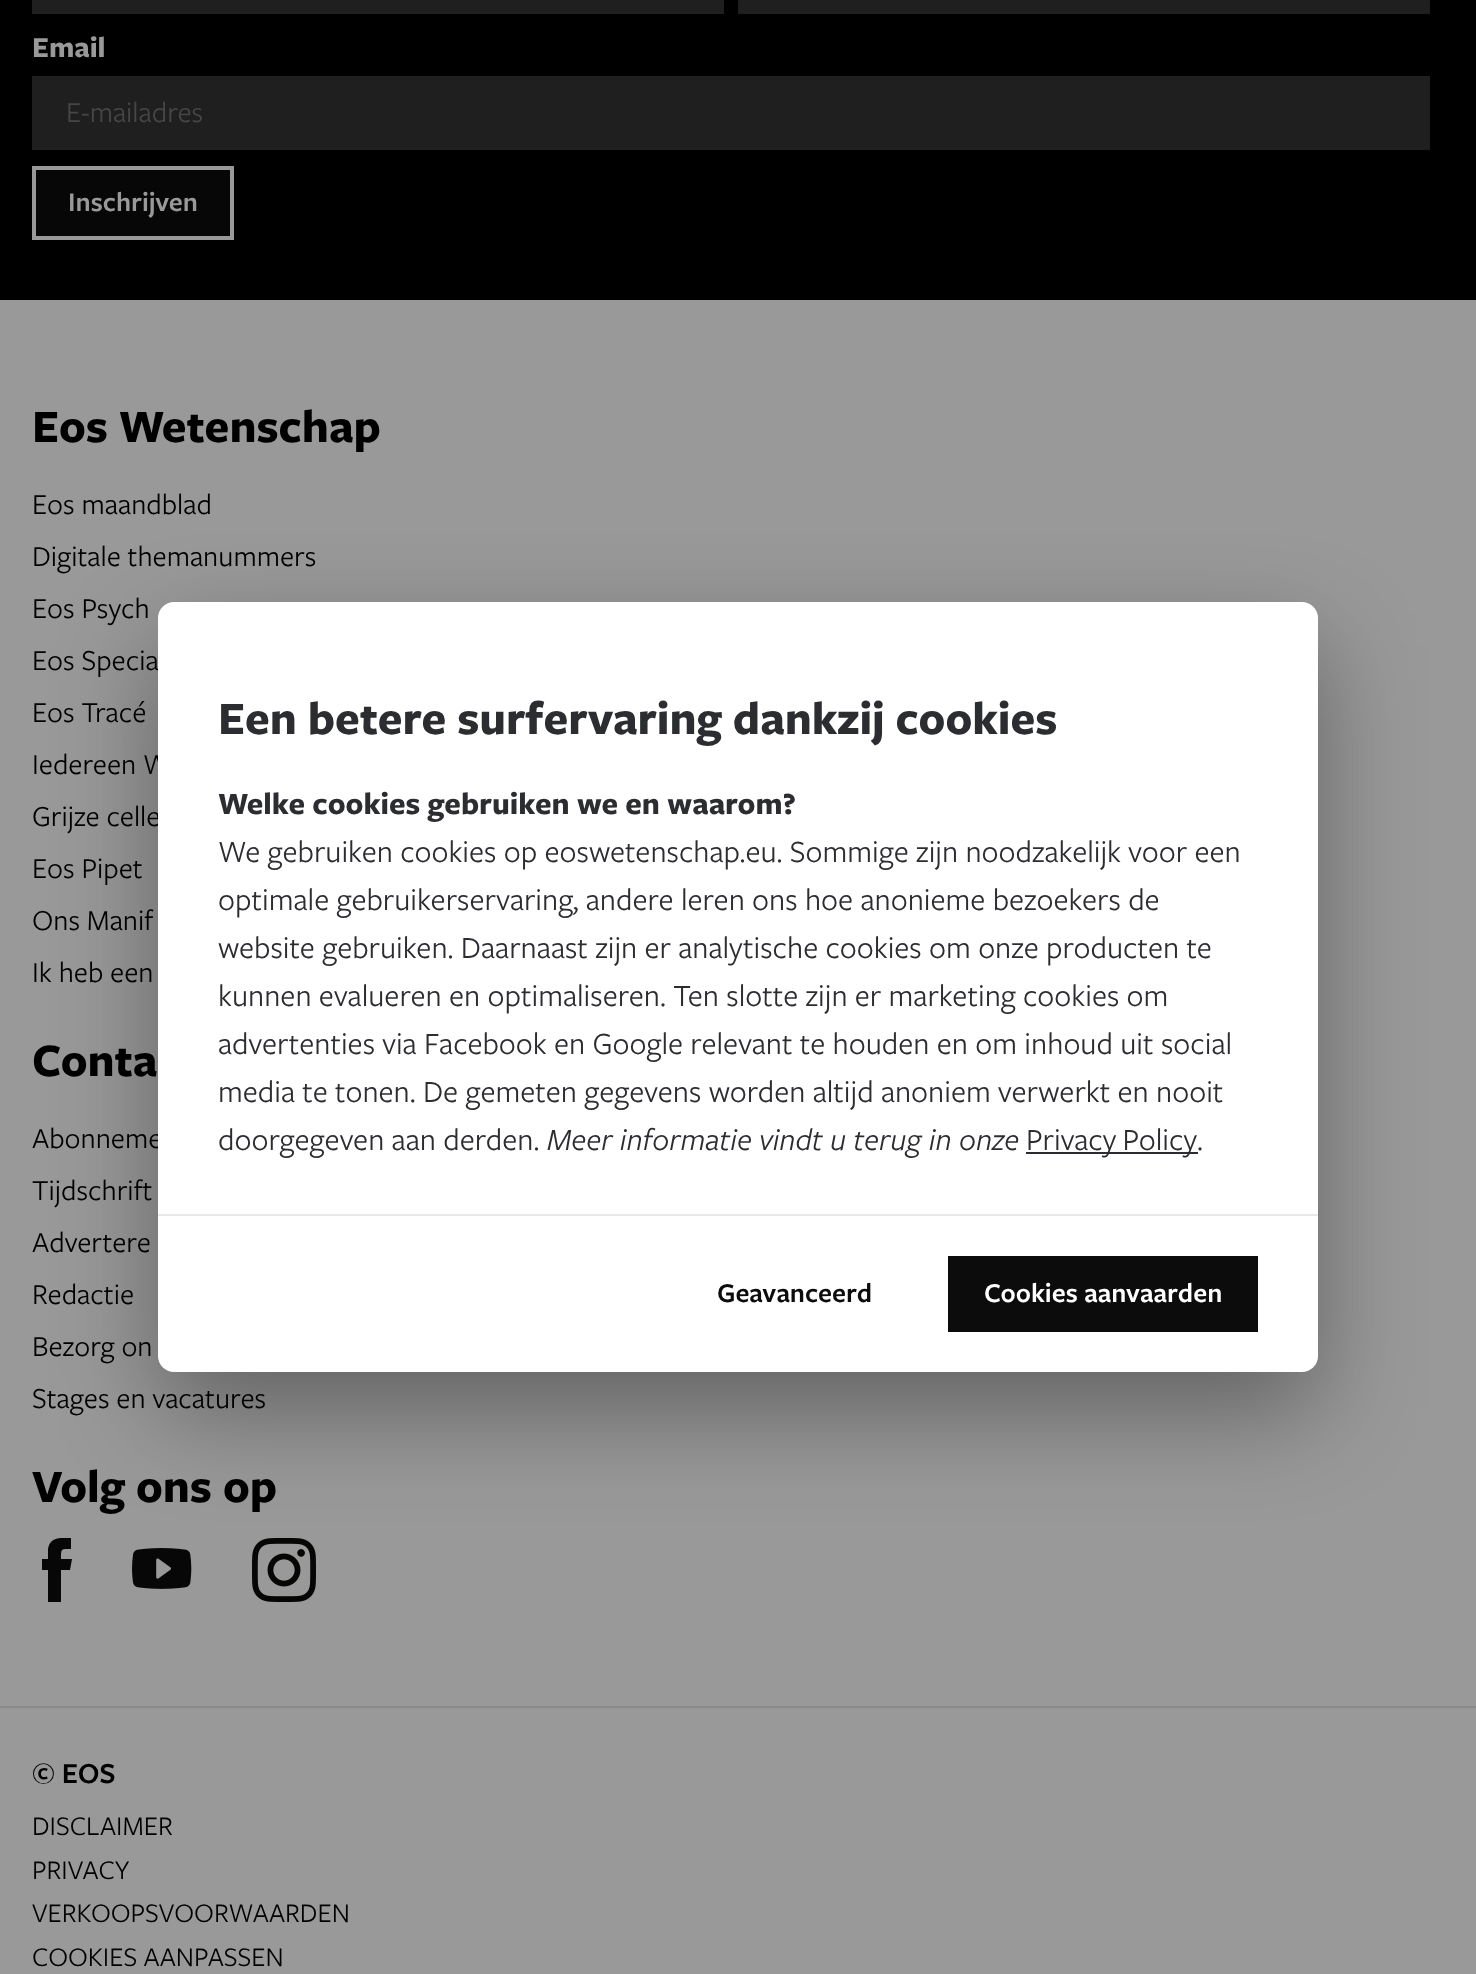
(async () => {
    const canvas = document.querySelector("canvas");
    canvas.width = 1476;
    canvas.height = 1974;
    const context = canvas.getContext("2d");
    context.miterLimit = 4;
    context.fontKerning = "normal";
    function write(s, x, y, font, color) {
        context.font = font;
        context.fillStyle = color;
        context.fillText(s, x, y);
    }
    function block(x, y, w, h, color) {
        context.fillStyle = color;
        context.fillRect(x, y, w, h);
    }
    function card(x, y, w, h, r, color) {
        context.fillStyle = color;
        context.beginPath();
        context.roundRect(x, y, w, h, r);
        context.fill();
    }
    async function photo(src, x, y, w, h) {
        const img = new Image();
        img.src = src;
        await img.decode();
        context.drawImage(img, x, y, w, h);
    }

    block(0, 0, 1476, 1974, "rgb(153, 153, 153)");
    block(0, 0, 1476, 300, "rgb(0, 0, 0)");
    block(32, 0, 692, 14, "rgb(31, 31, 31)");
    block(738, 0, 692, 14, "rgb(31, 31, 31)");
    write("Email", 32, 57, "bold 30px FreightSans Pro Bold", "rgb(153, 153, 153)");
    block(32, 76, 1398, 74, "rgb(31, 31, 31)");
    write("E-mailadres", 66, 122, "30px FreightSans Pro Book", "rgb(70, 70, 70)");
    context.fillStyle = "rgb(7, 7, 7)";
    context.beginPath();
    context.rect(34, 168, 198, 70);
    context.fill();
    context.strokeStyle = "rgb(153, 153, 153)";
    context.lineWidth = 4;
    context.stroke();
    write("Inschrijven", 68, 211, "600 28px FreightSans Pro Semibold", "rgb(153, 153, 153)");
    write("Eos Wetenschap", 32, 442, "bold 48px FreightSans Pro Bold", "rgb(0, 0, 0)");
    write("Eos maandblad", 32, 514, "30px FreightSans Pro Book", "rgb(0, 0, 0)");
    write("Digitale themanummers", 32, 566, "30px FreightSans Pro Book", "rgb(0, 0, 0)");
    write("Eos Psych", 32, 618, "30px FreightSans Pro Book", "rgb(0, 0, 0)");
    write("Eos Specia", 32, 670, "30px FreightSans Pro Book", "rgb(0, 0, 0)");
    write("Eos Tracé", 32, 722, "30px FreightSans Pro Book", "rgb(0, 0, 0)");
    write("Iedereen W", 32, 774, "30px FreightSans Pro Book", "rgb(0, 0, 0)");
    write("Grijze celle", 32, 826, "30px FreightSans Pro Book", "rgb(0, 0, 0)");
    write("Eos Pipet", 32, 878, "30px FreightSans Pro Book", "rgb(0, 0, 0)");
    write("Ons Manif", 32, 930, "30px FreightSans Pro Book", "rgb(0, 0, 0)");
    write("Ik heb een", 32, 982, "30px FreightSans Pro Book", "rgb(0, 0, 0)");
    write("Conta", 32, 1076, "bold 48px FreightSans Pro Bold", "rgb(0, 0, 0)");
    write("Abonneme", 32, 1148, "30px FreightSans Pro Book", "rgb(0, 0, 0)");
    write("Tijdschrift", 32, 1200, "30px FreightSans Pro Book", "rgb(0, 0, 0)");
    write("Advertere", 32, 1252, "30px FreightSans Pro Book", "rgb(0, 0, 0)");
    write("Redactie", 32, 1304, "30px FreightSans Pro Book", "rgb(0, 0, 0)");
    write("Bezorg on", 32, 1356, "30px FreightSans Pro Book", "rgb(0, 0, 0)");
    write("Stages en vacatures", 32, 1408, "30px FreightSans Pro Book", "rgb(0, 0, 0)");
    write("Volg ons op", 32, 1502, "bold 48px FreightSans Pro Bold", "rgb(0, 0, 0)");
    context.save();
    context.beginPath();
    context.rect(42, 1538, 30, 64);
    context.clip();
    context.fillStyle = "rgb(7, 7, 7)";
    context.beginPath();
    context.moveTo(61, 1559);
    context.bezierCurveTo(61, 1548, 61, 1549, 71, 1549);
    context.lineTo(71, 1538);
    context.bezierCurveTo(62, 1538, 50, 1536, 48, 1549);
    context.lineTo(48, 1559);
    context.lineTo(42, 1559);
    context.lineTo(42, 1570);
    context.lineTo(48, 1570);
    context.lineTo(48, 1602);
    context.lineTo(61, 1602);
    context.lineTo(61, 1570);
    context.lineTo(70, 1570);
    context.lineTo(72, 1559);
    context.closePath();
    context.fill("evenodd");
    context.restore();
    await photo("media/1.png", 132, 1548, 60, 41);
    await photo("media/2.png", 252, 1538, 64, 64);
    block(0, 1706, 1476, 2, "rgb(138, 138, 138)");
    write("© EOS", 32, 1783, "600 30px FreightSans Pro Semibold", "rgb(0, 0, 0)");
    write("DISCLAIMER", 32, 1835, "28px FreightSans Pro Book", "rgb(0, 0, 0)");
    write("PRIVACY", 32, 1879, "28px FreightSans Pro Book", "rgb(0, 0, 0)");
    write("VERKOOPSVOORWAARDEN", 32, 1922, "28px FreightSans Pro Book", "rgb(0, 0, 0)");
    write("COOKIES AANPASSEN", 32, 1966, "28px FreightSans Pro Book", "rgb(0, 0, 0)");
    context.fillStyle = "rgba(0, 0, 0, 0.35)";
    context.filter = "blur(50px)";
    context.beginPath();
    context.roundRect(158, 642, 1160, 770, 16);
    context.fill();
    context.filter = "none";
    card(158, 602, 1160, 770, 16, "rgb(255, 255, 255)");
    write("Een betere surfervaring dankzij cookies", 218, 734, "bold 48px FreightSans Pro Bold", "rgb(44, 45, 48)");
    write("Welke cookies gebruiken we en waarom?", 218, 814, "bold 32px FreightSans Pro Bold", "rgb(44, 45, 48)");
    write("We gebruiken cookies op eoswetenschap.eu. Sommige zijn noodzakelijk voor een", 218, 862, "32px FreightSans Pro Book", "rgb(44, 45, 48)");
    write("optimale gebruikerservaring, andere leren ons hoe anonieme bezoekers de", 218, 910, "32px FreightSans Pro Book", "rgb(44, 45, 48)");
    write("website gebruiken. Daarnaast zijn er analytische cookies om onze producten te", 218, 958, "32px FreightSans Pro Book", "rgb(44, 45, 48)");
    write("kunnen evalueren en optimaliseren. Ten slotte zijn er marketing cookies om", 218, 1006, "32px FreightSans Pro Book", "rgb(44, 45, 48)");
    write("advertenties via Facebook en Google relevant te houden en om inhoud uit social", 218, 1054, "32px FreightSans Pro Book", "rgb(44, 45, 48)");
    write("media te tonen. De gemeten gegevens worden altijd anoniem verwerkt en nooit", 218, 1102, "32px FreightSans Pro Book", "rgb(44, 45, 48)");
    write("doorgegeven aan derden.", 218, 1150, "32px FreightSans Pro Book", "rgb(44, 45, 48)");
    write("Meer informatie vindt u terug in onze", 547, 1150, "italic 32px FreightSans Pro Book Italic", "rgb(44, 45, 48)");
    block(1026, 1152, 172, 2, "rgb(44, 45, 48)");
    context.wordSpacing = "-1px";
    write("Privacy Policy", 1026, 1150, "32px FreightSans Pro Book", "rgb(44, 45, 48)");
    context.wordSpacing = "0px";
    write(".", 1197, 1150, "32px FreightSans Pro Book", "rgb(44, 45, 48)");
    block(158, 1214, 1160, 2, "rgb(232, 232, 232)");
    write("Geavanceerd", 717, 1302, "600 28px FreightSans Pro Semibold", "rgb(12, 12, 12)");
    block(948, 1256, 310, 76, "rgb(12, 12, 12)");
    write("Cookies aanvaarden", 984, 1302, "600 28px FreightSans Pro Semibold", "rgb(255, 255, 255)");
})();
